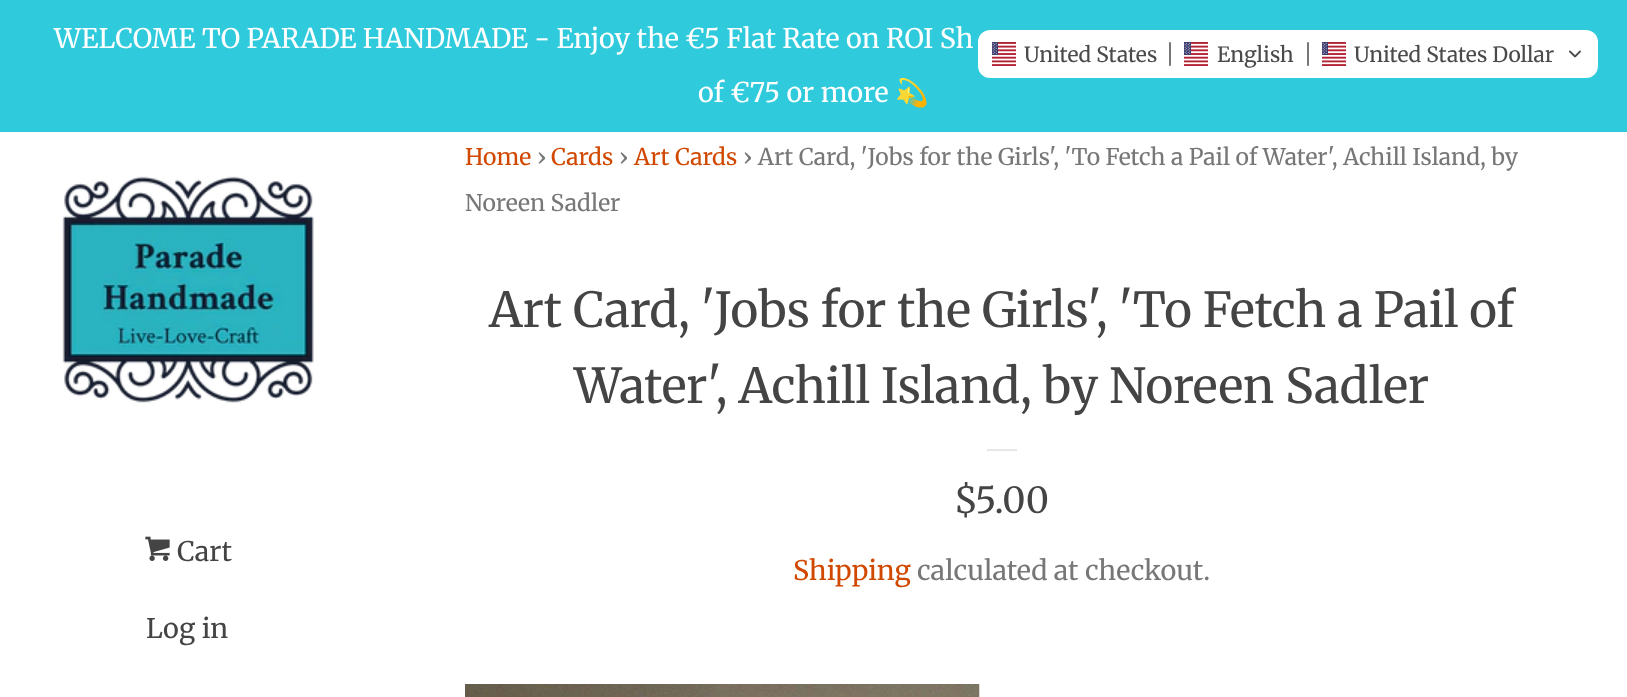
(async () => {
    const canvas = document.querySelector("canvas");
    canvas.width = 1627;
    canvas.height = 697;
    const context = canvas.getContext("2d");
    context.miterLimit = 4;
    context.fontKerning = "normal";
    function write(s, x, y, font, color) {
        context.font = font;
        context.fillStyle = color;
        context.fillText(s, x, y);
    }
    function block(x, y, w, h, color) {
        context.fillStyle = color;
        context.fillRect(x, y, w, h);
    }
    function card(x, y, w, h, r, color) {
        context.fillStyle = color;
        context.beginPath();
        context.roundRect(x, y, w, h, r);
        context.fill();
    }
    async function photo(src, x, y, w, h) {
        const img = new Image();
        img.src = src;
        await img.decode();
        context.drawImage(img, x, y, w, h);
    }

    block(0, 0, 1627, 697, "rgb(255, 255, 255)");
    block(0, 0, 1627, 132, "rgb(48, 202, 221)");
    write("WELCOME TO PARADE HANDMADE - Enjoy the €5 Flat Rate on ROI Sh", 54, 48, "27px Merriweather", "rgb(255, 255, 255)");
    write("of €75 or more", 698, 102, "27px Merriweather", "rgb(255, 255, 255)");
    write("💫", 895, 102, "27px Noto Color Emoji", "rgb(255, 255, 255)");
    write("Home", 465, 165, "22.95px Merriweather", "rgb(209, 72, 0)");
    write("›", 537, 165, "22.95px Merriweather", "rgb(119, 119, 119)");
    write("Cards", 551, 165, "22.95px Merriweather", "rgb(209, 72, 0)");
    write("›", 619, 165, "22.95px Merriweather", "rgb(119, 119, 119)");
    write("Art Cards", 634, 165, "22.95px Merriweather", "rgb(209, 72, 0)");
    write("› Art Card, 'Jobs for the Girls', 'To Fetch a Pail of Water', Achill Island, by", 743, 165, "22.95px Merriweather", "rgb(119, 119, 119)");
    write("Noreen Sadler", 465, 211, "22.95px Merriweather", "rgb(119, 119, 119)");
    write("Art Card, 'Jobs for the Girls', 'To Fetch a Pail of", 489, 327, "48px 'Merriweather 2'", "rgb(68, 68, 68)");
    write("Water', Achill Island, by Noreen Sadler", 574, 403, "48px 'Merriweather 2'", "rgb(68, 68, 68)");
    block(987, 449, 30, 2, "rgb(231, 231, 231)");
    write("$5.00", 954, 513, "36px Merriweather", "rgb(68, 68, 68)");
    write("Shipping", 793, 580, "27px Merriweather", "rgb(209, 72, 0)");
    write("calculated at checkout.", 917, 580, "27px Merriweather", "rgb(119, 119, 119)");
    await photo("media/1.png", 465, 684, 515, 13);
    card(978, 30, 620, 48, 12, "rgb(255, 255, 255)");
    await photo("media/2.png", 992, 42, 24, 24);
    write("United States", 1024, 62, "21px Merriweather", "rgb(74, 74, 74)");
    await photo("media/3.png", 1169, 42, 2, 24);
    await photo("media/4.png", 1184, 42, 24, 24);
    write("English", 1217, 62, "21px Merriweather", "rgb(74, 74, 74)");
    await photo("media/3.png", 1307, 42, 2, 24);
    await photo("media/2.png", 1322, 42, 24, 24);
    write("United States Dollar", 1354, 62, "21px Merriweather", "rgb(74, 74, 74)");
    await photo("media/5.png", 1569, 50, 12, 8);
    await photo("media/6.png", 62, 176, 252, 227);
    await photo("media/7.png", 145, 536, 25, 25);
    write("Cart", 177, 561, "27px Merriweather", "rgb(68, 68, 68)");
    write("Log in", 146, 638, "27px Merriweather", "rgb(68, 68, 68)");
})();
